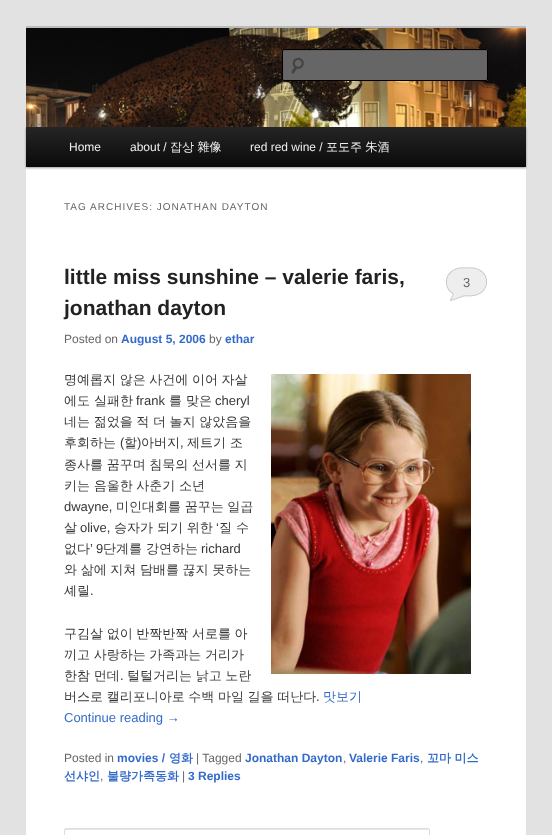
(async () => {
    const canvas = document.querySelector("canvas");
    canvas.width = 552;
    canvas.height = 835;
    const context = canvas.getContext("2d");
    context.miterLimit = 4;
    context.fontKerning = "normal";
    function write(s, x, y, font, color) {
        context.font = font;
        context.fillStyle = color;
        context.fillText(s, x, y);
    }
    function block(x, y, w, h, color) {
        context.fillStyle = color;
        context.fillRect(x, y, w, h);
    }
    function card(x, y, w, h, r, color) {
        context.fillStyle = color;
        context.beginPath();
        context.roundRect(x, y, w, h, r);
        context.fill();
    }
    async function photo(src, x, y, w, h) {
        const img = new Image();
        img.src = src;
        await img.decode();
        context.drawImage(img, x, y, w, h);
    }
    let gradient;

    block(0, 0, 552, 835, "rgb(226, 226, 226)");
    block(26, 167, 500, 668, "rgb(255, 255, 255)");
    block(26, 26, 500, 2, "rgb(187, 187, 187)");
    context.fillStyle = "rgba(0, 0, 0, 0.4)";
    context.filter = "blur(1px)";
    context.beginPath();
    context.rect(26, 128, 500, 40);
    context.fill();
    context.filter = "none";
    await photo("media/1.png", 26, 28, 500, 99);
    card(282, 49, 206, 32, 2, "rgb(102, 102, 102)");
    await photo("media/2.png", 291, 57, 13, 17);
    context.fillStyle = "rgb(92, 92, 92)";
    context.beginPath();
    context.moveTo(284, 51);
    context.lineTo(487, 51);
    context.lineTo(487, 52);
    context.lineTo(487, 50);
    context.lineTo(486, 50);
    context.lineTo(284, 50);
    context.bezierCurveTo(283, 50, 283, 51, 283, 52);
    context.bezierCurveTo(283, 51, 283, 51, 284, 51);
    context.closePath();
    context.fill();
    context.beginPath();
    context.roundRect(282.5, 49.5, 205, 31, 1.5);
    context.strokeStyle = "rgb(0, 0, 0)";
    context.stroke();
    gradient = context.createLinearGradient(276, 127, 276, 167);
    gradient.addColorStop(0, "rgb(37, 37, 37)");
    gradient.addColorStop(1, "rgb(10, 10, 10)");
    context.fillStyle = gradient;
    context.fillRect(26, 127, 500, 40);
    write("Home", 69, 151, "12px Liberation Sans", "rgb(238, 238, 238)");
    write("about /", 130, 151, "12px Liberation Sans", "rgb(238, 238, 238)");
    write("잡상 雜像", 170, 151, "500 12px WenQuanYi Zen Hei", "rgb(238, 238, 238)");
    write("red red wine /", 250, 151, "12px Liberation Sans", "rgb(238, 238, 238)");
    write("포도주 朱酒", 326, 151, "500 12px WenQuanYi Zen Hei", "rgb(238, 238, 238)");
    context.letterSpacing = "1px";
    write("TAG ARCHIVES: JONATHAN DAYTON", 64, 210, "10px Liberation Sans", "rgb(102, 102, 102)");
    context.letterSpacing = "0px";
    write("little miss sunshine – valerie faris,", 64, 284, "bold 21px Liberation Sans", "rgb(34, 34, 34)");
    write("jonathan dayton", 64, 315, "bold 21px Liberation Sans", "rgb(34, 34, 34)");
    block(446, 267, 41, 34, "rgb(238, 238, 238)");
    await photo("media/3.png", 445, 265, 43, 36);
    write("3", 463, 287, "13px Liberation Sans", "rgb(102, 102, 102)");
    write("Posted on", 64, 343, "12px Liberation Sans", "rgb(102, 102, 102)");
    write("August 5, 2006", 121, 343, "bold 12px Liberation Sans", "rgb(52, 107, 201)");
    write("by", 209, 343, "12px Liberation Sans", "rgb(102, 102, 102)");
    write("ethar", 225, 343, "bold 12px Liberation Sans", "rgb(52, 107, 201)");
    context.wordSpacing = "-0.25px";
    write("명예롭지 않은 사건에 이어 자살", 64, 384, "500 13px WenQuanYi Zen Hei", "rgb(55, 55, 55)");
    await photo("media/4.png", 271, 374, 200, 300);
    context.wordSpacing = "0px";
    write("에도 실패한", 64, 405, "500 13px WenQuanYi Zen Hei", "rgb(55, 55, 55)");
    write("frank", 136, 405, "13px Liberation Sans", "rgb(55, 55, 55)");
    write("를 맞은", 169, 405, "500 13px WenQuanYi Zen Hei", "rgb(55, 55, 55)");
    write("cheryl", 215, 405, "13px Liberation Sans", "rgb(55, 55, 55)");
    context.wordSpacing = "-0.25px";
    write("네는 젊었을 적 더 놀지 않았음을", 64, 426, "500 13px WenQuanYi Zen Hei", "rgb(55, 55, 55)");
    context.wordSpacing = "0px";
    write("후회하는", 64, 447, "500 13px WenQuanYi Zen Hei", "rgb(55, 55, 55)");
    write("(", 120, 447, "13px Liberation Sans", "rgb(55, 55, 55)");
    write("할", 124, 447, "500 13px WenQuanYi Zen Hei", "rgb(55, 55, 55)");
    write(")", 137, 447, "13px Liberation Sans", "rgb(55, 55, 55)");
    write("아버지", 141, 447, "500 13px WenQuanYi Zen Hei", "rgb(55, 55, 55)");
    write(",", 180, 447, "13px Liberation Sans", "rgb(55, 55, 55)");
    write("제트기 조", 187, 447, "500 13px WenQuanYi Zen Hei", "rgb(55, 55, 55)");
    context.wordSpacing = "-0.25px";
    write("종사를 꿈꾸며 침묵의 선서를 지", 64, 469, "500 13px WenQuanYi Zen Hei", "rgb(55, 55, 55)");
    write("키는 음울한 사춘기 소년", 64, 490, "500 13px WenQuanYi Zen Hei", "rgb(55, 55, 55)");
    context.wordSpacing = "0px";
    write("dwayne,", 64, 511, "13px Liberation Sans", "rgb(55, 55, 55)");
    context.wordSpacing = "-0.25px";
    write("미인대회를 꿈꾸는 일곱", 116, 511, "500 13px WenQuanYi Zen Hei", "rgb(55, 55, 55)");
    context.wordSpacing = "0px";
    write("살", 64, 532, "500 13px WenQuanYi Zen Hei", "rgb(55, 55, 55)");
    write("olive,", 80, 532, "13px Liberation Sans", "rgb(55, 55, 55)");
    write("승자가 되기 위한", 114, 532, "500 13px WenQuanYi Zen Hei", "rgb(55, 55, 55)");
    write("‘", 216, 532, "13px Liberation Sans", "rgb(55, 55, 55)");
    write("질 수", 219, 532, "500 13px WenQuanYi Zen Hei", "rgb(55, 55, 55)");
    write("없다", 64, 553, "500 13px WenQuanYi Zen Hei", "rgb(55, 55, 55)");
    write("’ 9", 90, 553, "13px Liberation Sans", "rgb(55, 55, 55)");
    write("단계를 강연하는", 103, 553, "500 13px WenQuanYi Zen Hei", "rgb(55, 55, 55)");
    write("richard", 201, 553, "13px Liberation Sans", "rgb(55, 55, 55)");
    context.wordSpacing = "-0.25px";
    write("와 삶에 지쳐 담배를 끊지 못하는", 64, 574, "500 13px WenQuanYi Zen Hei", "rgb(55, 55, 55)");
    context.wordSpacing = "0px";
    write("셰릴", 64, 595, "500 13px WenQuanYi Zen Hei", "rgb(55, 55, 55)");
    write(".", 90, 595, "13px Liberation Sans", "rgb(55, 55, 55)");
    context.wordSpacing = "-0.25px";
    write("구김살 없이 반짝반짝 서로를 아", 64, 638, "500 13px WenQuanYi Zen Hei", "rgb(55, 55, 55)");
    write("끼고 사랑하는 가족과는 거리가", 64, 659, "500 13px WenQuanYi Zen Hei", "rgb(55, 55, 55)");
    write("한참 먼데", 64, 680, "500 13px WenQuanYi Zen Hei", "rgb(55, 55, 55)");
    context.wordSpacing = "0px";
    write(".", 120, 680, "13px Liberation Sans", "rgb(55, 55, 55)");
    context.wordSpacing = "-0.25px";
    write("털털거리는 낡고 노란", 127, 680, "500 13px WenQuanYi Zen Hei", "rgb(55, 55, 55)");
    write("버스로 캘리포니아로 수백 마일 길을 떠난다", 64, 701, "500 13px WenQuanYi Zen Hei", "rgb(55, 55, 55)");
    context.wordSpacing = "0px";
    write(".", 316, 701, "13px Liberation Sans", "rgb(55, 55, 55)");
    write("맛보기", 323, 701, "500 13px WenQuanYi Zen Hei", "rgb(52, 107, 201)");
    write("Continue reading →", 64, 722, "13px Liberation Sans", "rgb(52, 107, 201)");
    write("Posted in", 64, 762, "12px Liberation Sans", "rgb(102, 102, 102)");
    write("movies /", 117, 762, "bold 12px Liberation Sans", "rgb(52, 107, 201)");
    write("영화", 169, 762, "bold 12px WenQuanYi Zen Hei", "rgb(52, 107, 201)");
    write("| Tagged", 196, 762, "12px Liberation Sans", "rgb(102, 102, 102)");
    write("Jonathan Dayton", 245, 762, "bold 12px Liberation Sans", "rgb(52, 107, 201)");
    write(",", 343, 762, "12px Liberation Sans", "rgb(102, 102, 102)");
    write("Valerie Faris", 349, 762, "bold 12px Liberation Sans", "rgb(52, 107, 201)");
    write(",", 420, 762, "12px Liberation Sans", "rgb(102, 102, 102)");
    write("꼬마 미스", 427, 762, "bold 12px WenQuanYi Zen Hei", "rgb(52, 107, 201)");
    write("선샤인", 64, 780, "bold 12px WenQuanYi Zen Hei", "rgb(52, 107, 201)");
    write(",", 100, 780, "12px Liberation Sans", "rgb(102, 102, 102)");
    write("불량가족동화", 107, 780, "bold 12px WenQuanYi Zen Hei", "rgb(52, 107, 201)");
    write("|", 182, 780, "12px Liberation Sans", "rgb(102, 102, 102)");
    write("3 Replies", 188, 780, "bold 12px Liberation Sans", "rgb(52, 107, 201)");
    context.fillStyle = "rgb(230, 230, 230)";
    context.beginPath();
    context.moveTo(66, 830);
    context.lineTo(428, 830);
    context.bezierCurveTo(429, 830, 429, 830, 429, 831);
    context.lineTo(429, 830);
    context.lineTo(428, 829);
    context.lineTo(65, 829);
    context.lineTo(65, 831);
    context.bezierCurveTo(65, 830, 65, 830, 66, 830);
    context.closePath();
    context.fill();
    context.beginPath();
    context.roundRect(64.5, 828.5, 365, 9, 1.5);
    context.strokeStyle = "rgb(221, 221, 221)";
    context.stroke();
})();
